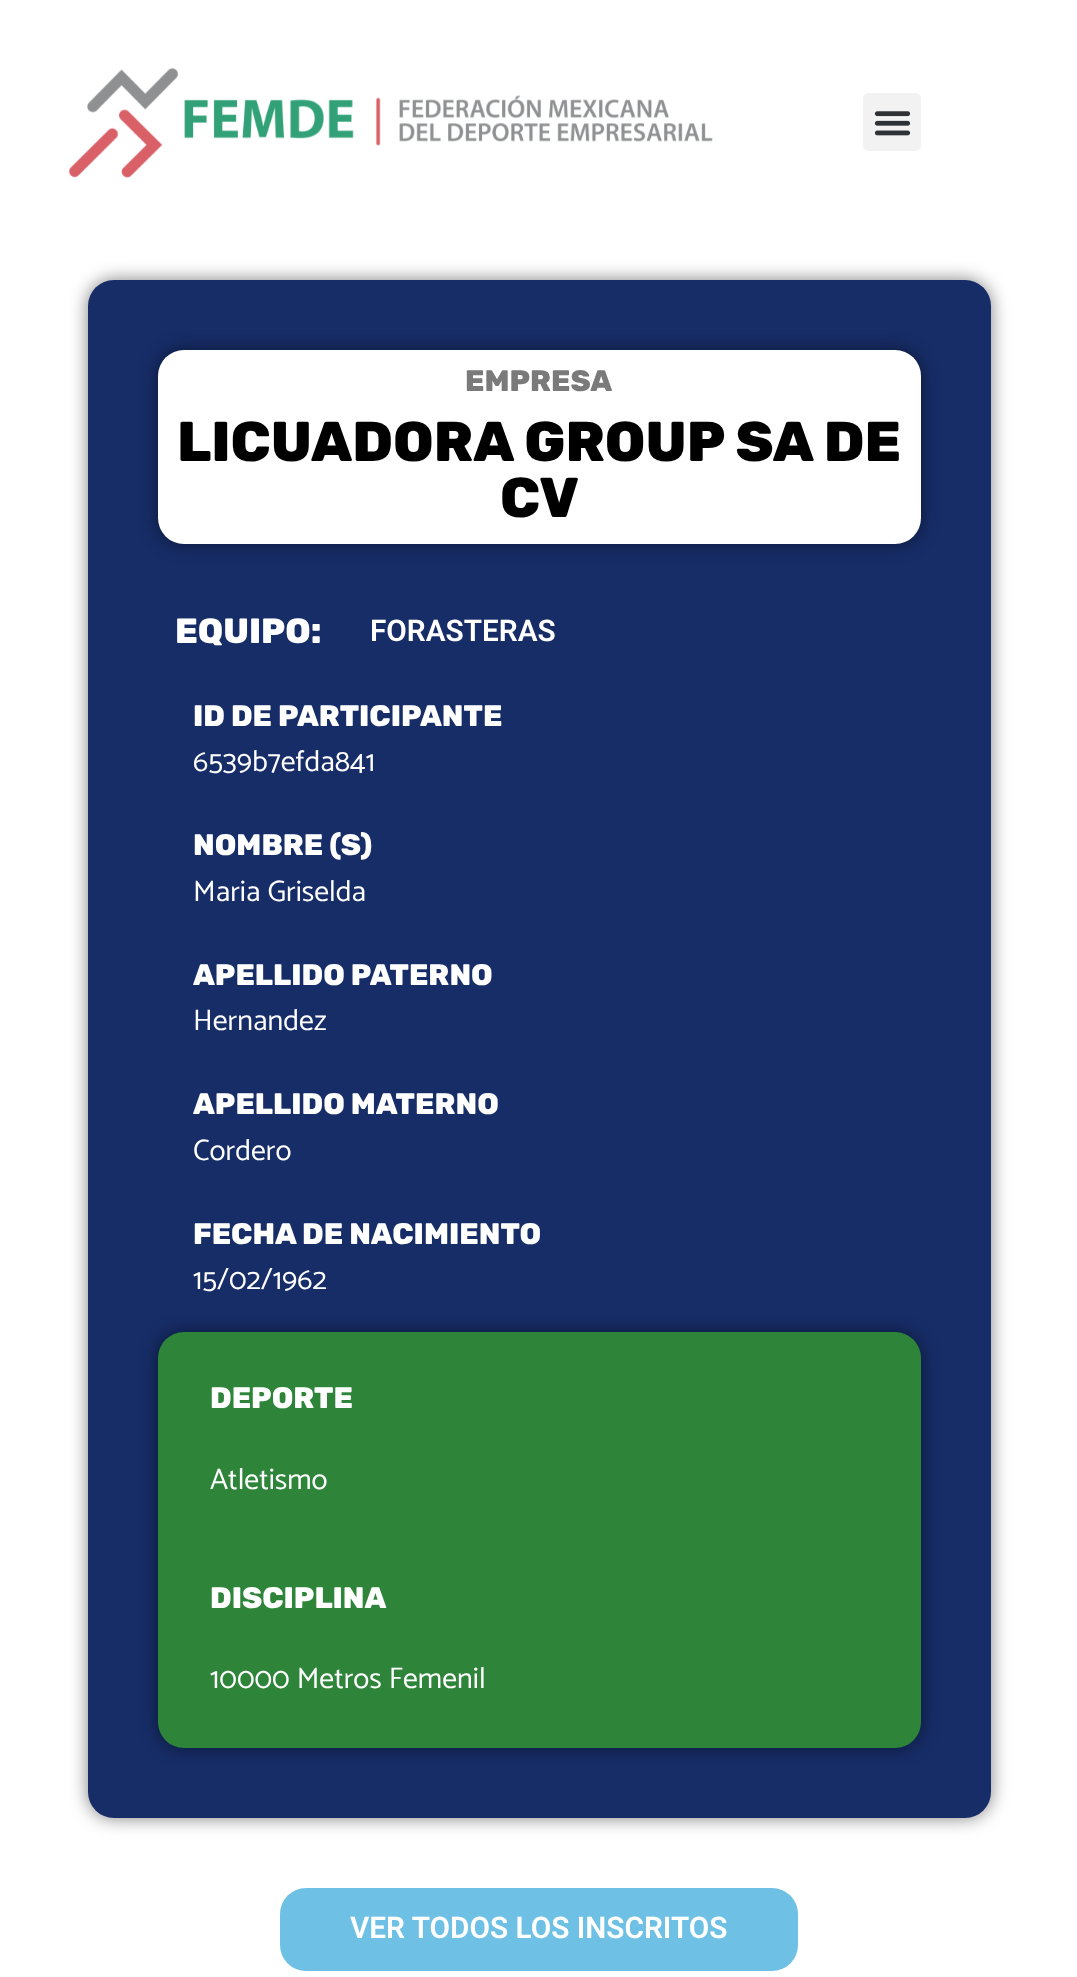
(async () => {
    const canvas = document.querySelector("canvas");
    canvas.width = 1077;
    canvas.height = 1977;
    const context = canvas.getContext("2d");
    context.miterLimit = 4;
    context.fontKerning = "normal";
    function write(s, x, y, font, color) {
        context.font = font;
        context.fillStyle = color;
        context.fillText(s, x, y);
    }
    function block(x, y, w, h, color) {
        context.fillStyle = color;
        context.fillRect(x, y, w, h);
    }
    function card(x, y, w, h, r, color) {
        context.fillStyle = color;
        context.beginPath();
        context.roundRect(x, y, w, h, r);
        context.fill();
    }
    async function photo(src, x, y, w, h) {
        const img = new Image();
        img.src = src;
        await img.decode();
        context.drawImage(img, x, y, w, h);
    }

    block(0, 0, 1077, 1977, "rgb(255, 255, 255)");
    await photo("media/1.png", 69, 68, 644, 110);
    card(863, 93, 58, 58, 5, "rgb(242, 242, 242)");
    await photo("media/2.png", 874, 111, 37, 25);
    context.fillStyle = "rgba(0, 0, 0, 0.5)";
    context.filter = "blur(9px)";
    context.beginPath();
    context.roundRect(88, 280, 903, 1538, 26);
    context.fill();
    context.filter = "none";
    card(88, 280, 903, 1538, 26, "rgb(23, 45, 104)");
    context.fillStyle = "rgba(0, 0, 0, 0.5)";
    context.filter = "blur(9px)";
    context.beginPath();
    context.roundRect(158, 350, 763, 194, 26);
    context.fill();
    context.filter = "none";
    card(158, 350, 763, 194, 26, "rgb(255, 255, 255)");
    write("EMPRESA", 465, 391, "800 29.75px Rubik", "rgb(122, 122, 122)");
    write("LICUADORA GROUP SA DE", 177, 461, "800 56px Rubik", "rgb(0, 0, 0)");
    write("CV", 500, 517, "800 56px Rubik", "rgb(0, 0, 0)");
    write("EQUIPO:", 175, 643, "800 35px Rubik", "rgb(255, 255, 255)");
    write("FORASTERAS", 370, 641, "600 29.75px Roboto", "rgb(255, 255, 255)");
    write("ID DE PARTICIPANTE", 193, 726, "800 29.75px Rubik", "rgb(255, 255, 255)");
    write("6539b7efda841", 193, 771, "100 29.75px Catamaran", "rgb(255, 255, 255)");
    write("NOMBRE (S)", 193, 855, "800 29.75px Rubik", "rgb(255, 255, 255)");
    write("Maria Griselda", 193, 901, "100 29.75px Catamaran", "rgb(255, 255, 255)");
    write("APELLIDO PATERNO", 193, 985, "800 29.75px Rubik", "rgb(255, 255, 255)");
    write("Hernandez", 193, 1030, "100 29.75px Catamaran", "rgb(255, 255, 255)");
    write("APELLIDO MATERNO", 193, 1114, "800 29.75px Rubik", "rgb(255, 255, 255)");
    write("Cordero", 193, 1160, "100 29.75px Catamaran", "rgb(255, 255, 255)");
    write("FECHA DE NACIMIENTO", 193, 1244, "800 29.75px Rubik", "rgb(255, 255, 255)");
    write("15/02/1962", 193, 1289, "100 29.75px Catamaran", "rgb(255, 255, 255)");
    context.fillStyle = "rgba(0, 0, 0, 0.5)";
    context.filter = "blur(9px)";
    context.beginPath();
    context.roundRect(158, 1332, 763, 416, 26);
    context.fill();
    context.filter = "none";
    card(158, 1332, 763, 416, 26, "rgb(46, 133, 58)");
    write("DEPORTE", 210, 1408, "800 29.75px Rubik", "rgb(255, 255, 255)");
    write("Atletismo", 210, 1489, "100 29.75px Catamaran", "rgb(255, 255, 255)");
    write("DISCIPLINA", 210, 1608, "800 29.75px Rubik", "rgb(255, 255, 255)");
    write("10000 Metros Femenil", 210, 1688, "100 29.75px Catamaran", "rgb(255, 255, 255)");
    card(280, 1888, 518, 83, 26, "rgb(110, 193, 228)");
    write("VER TODOS LOS INSCRITOS", 350, 1938, "600 29.75px Roboto", "rgb(255, 255, 255)");
})();
